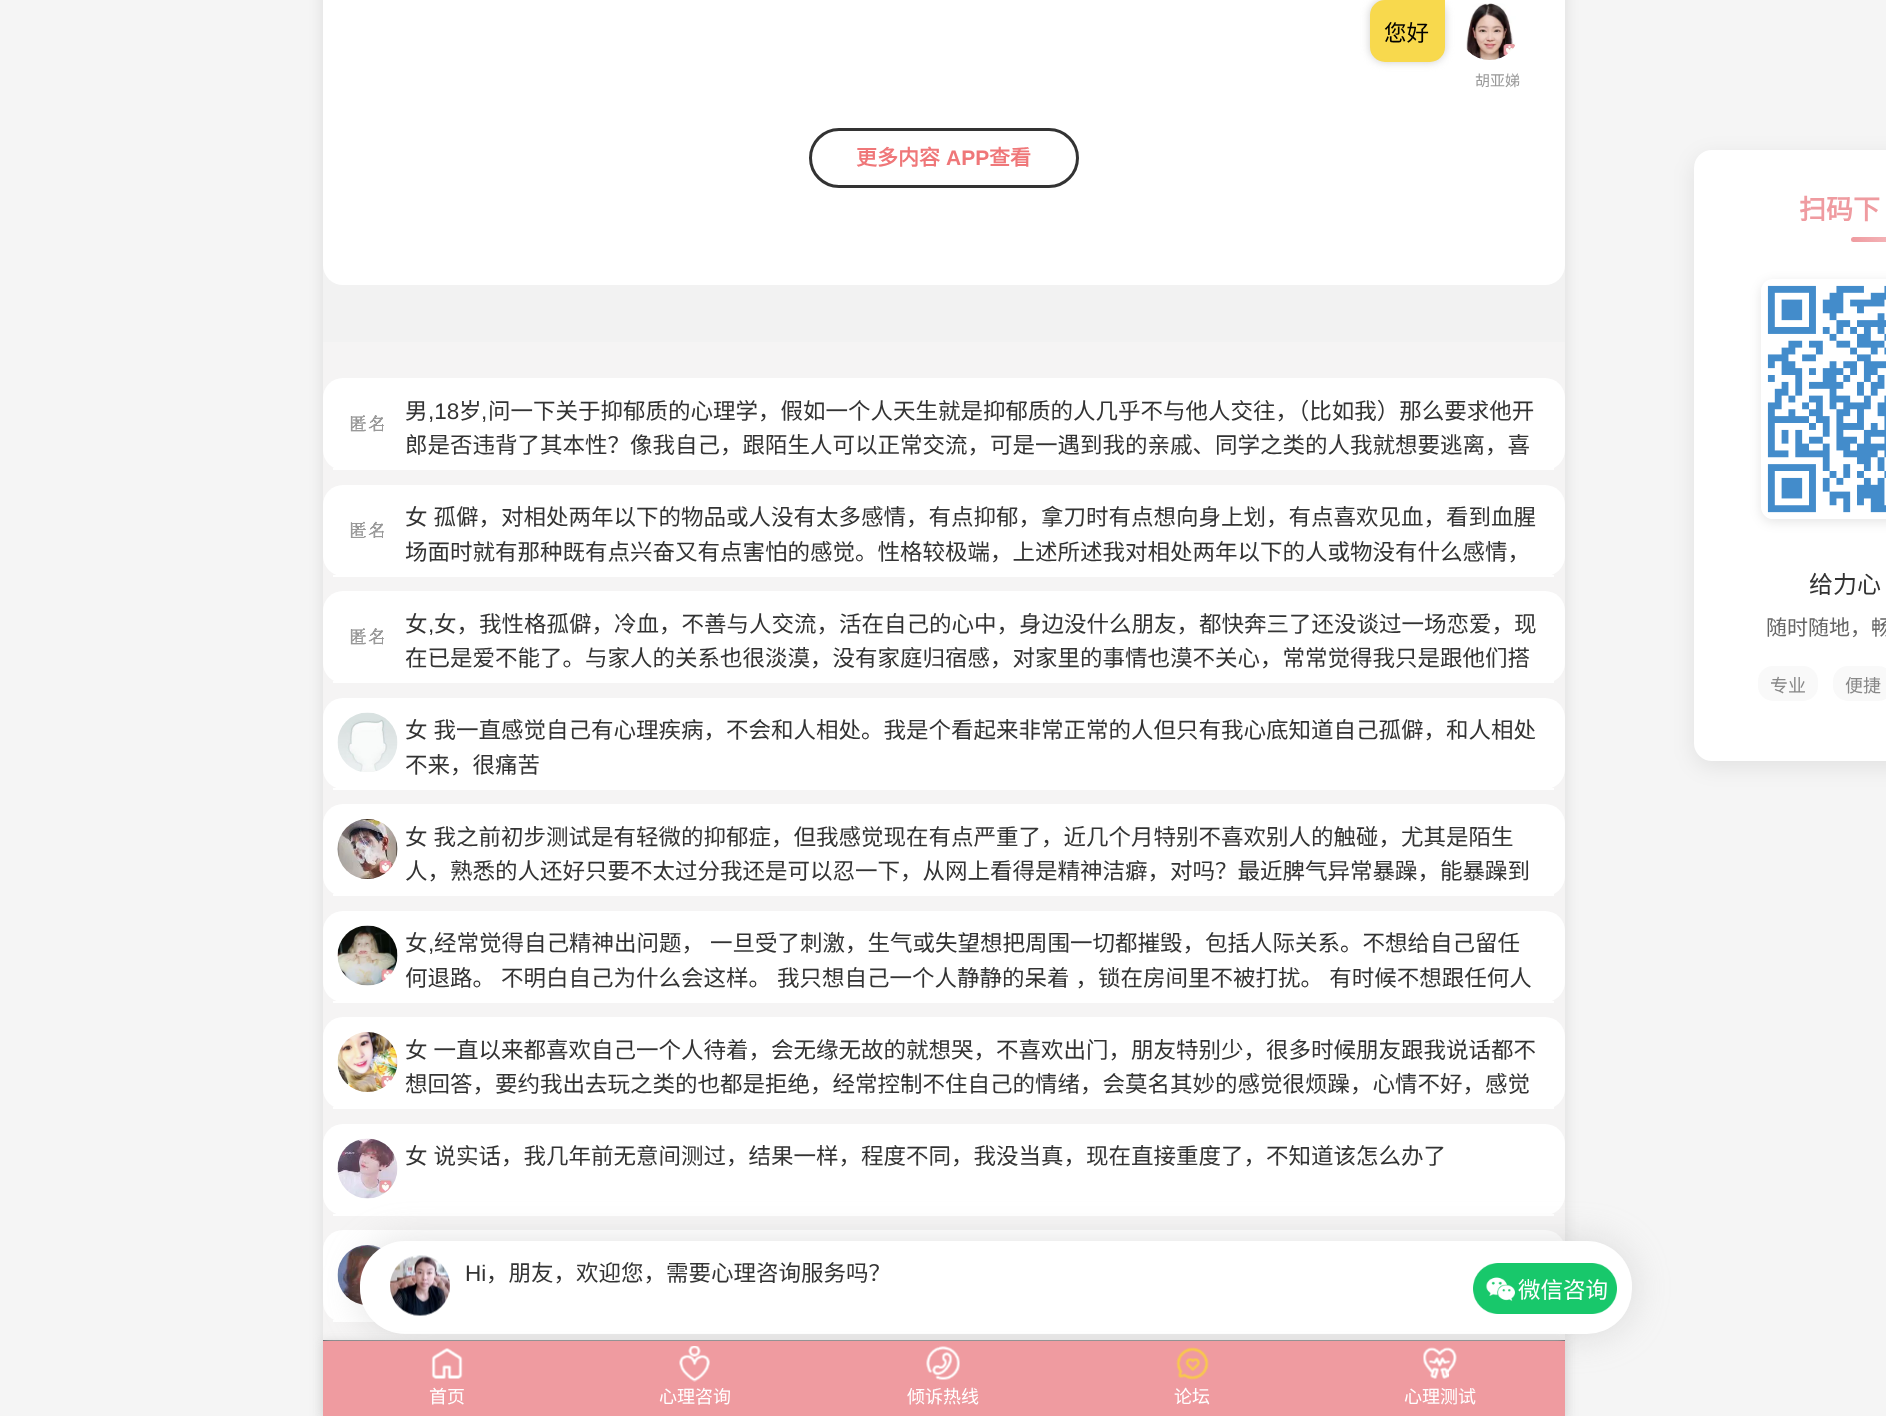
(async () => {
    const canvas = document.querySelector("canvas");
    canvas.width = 1886;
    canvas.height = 1416;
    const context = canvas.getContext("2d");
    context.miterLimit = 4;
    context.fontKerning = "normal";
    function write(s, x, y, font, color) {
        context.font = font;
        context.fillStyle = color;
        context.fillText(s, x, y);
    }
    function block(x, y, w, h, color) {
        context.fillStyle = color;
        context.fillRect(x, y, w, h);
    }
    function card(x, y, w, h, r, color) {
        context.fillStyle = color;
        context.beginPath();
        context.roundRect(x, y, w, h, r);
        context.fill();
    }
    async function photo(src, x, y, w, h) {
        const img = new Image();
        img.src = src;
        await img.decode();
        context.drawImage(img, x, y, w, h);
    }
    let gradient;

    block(0, 0, 1886, 1416, "rgb(245, 245, 245)");
    context.fillStyle = "rgba(0, 0, 0, 0.1)";
    context.filter = "blur(7.5px)";
    context.beginPath();
    context.rect(323, -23, 1242, 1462);
    context.fill();
    context.filter = "none";
    block(323, 265, 1242, 77, "rgb(242, 242, 242)");
    card(323, -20, 1242, 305, 20, "rgb(255, 255, 255)");
    context.fillStyle = "rgb(204, 204, 204)";
    context.filter = "blur(4px)";
    context.beginPath();
    context.roundRect(1370, 0, 75, 62, 15);
    context.fill();
    context.filter = "none";
    context.fillStyle = "rgb(248, 217, 77)";
    context.beginPath();
    context.roundRect(1371, 1, 73, 60, [14, 0, 14, 14]);
    context.fill();
    context.strokeStyle = "rgb(248, 217, 77)";
    context.lineWidth = 2;
    context.stroke();
    write("您好", 1384, 41, "22.5px Noto Sans CJK SC", "rgb(0, 0, 0)");
    await photo("media/1.png", 1466, 3, 50, 57);
    write("胡亚娣", 1475, 86, "15px Noto Sans CJK SC", "rgb(153, 153, 153)");
    context.beginPath();
    context.roundRect(810.5, 129.5, 267, 57, 28.5);
    context.strokeStyle = "rgb(51, 51, 51)";
    context.lineWidth = 3;
    context.stroke();
    write("更多内容", 856, 165, "bold 21px Noto Sans CJK SC", "rgb(239, 119, 121)");
    write("APP", 946, 165, "bold 21px Liberation Sans", "rgb(239, 119, 121)");
    write("查看", 989, 165, "bold 21px Noto Sans CJK SC", "rgb(239, 119, 121)");
    block(323, 342, 1242, 998, "rgb(245, 244, 244)");
    card(323, 378, 1242, 92, 20, "rgb(255, 255, 255)");
    block(333, 468, 1221, 2, "rgb(255, 255, 255)");
    await photo("media/2.png", 350, 415, 34, 17);
    write("男", 405, 419, "22.5px Noto Sans CJK SC", "rgb(51, 51, 51)");
    write(",18", 428, 419, "22.5px Liberation Sans", "rgb(51, 51, 51)");
    write("岁", 459, 419, "22.5px Noto Sans CJK SC", "rgb(51, 51, 51)");
    write(",", 481, 419, "22.5px Liberation Sans", "rgb(51, 51, 51)");
    write("问一下关于抑郁质的心理学，假如一个人天生就是抑郁质的人几乎不与他人交往，（比如我）那么要求他开", 488, 419, "22.5px Noto Sans CJK SC", "rgb(51, 51, 51)");
    write("郎是否违背了其本性？像我自己，跟陌生人可以正常交流，可是一遇到我的亲戚、同学之类的人我就想要逃离，喜", 405, 453, "22.5px Noto Sans CJK SC", "rgb(51, 51, 51)");
    card(323, 485, 1242, 91, 20, "rgb(255, 255, 255)");
    block(333, 575, 1221, 2, "rgb(255, 255, 255)");
    await photo("media/3.png", 350, 521, 34, 17);
    context.wordSpacing = "1px";
    write("女 孤僻，对相处两年以下的物品或人没有太多感情，有点抑郁，拿刀时有点想向身上划，有点喜欢见血，看到血腥", 405, 525, "22.5px Noto Sans CJK SC", "rgb(51, 51, 51)");
    context.wordSpacing = "0px";
    write("场面时就有那种既有点兴奋又有点害怕的感觉。性格较极端，上述所述我对相处两年以下的人或物没有什么感情，", 405, 560, "22.5px Noto Sans CJK SC", "rgb(51, 51, 51)");
    card(323, 591, 1242, 92, 20, "rgb(255, 255, 255)");
    block(333, 681, 1221, 2, "rgb(255, 255, 255)");
    await photo("media/2.png", 350, 628, 34, 17);
    write("女", 405, 632, "22.5px Noto Sans CJK SC", "rgb(51, 51, 51)");
    write(",", 428, 632, "22.5px Liberation Sans", "rgb(51, 51, 51)");
    write("女，我性格孤僻，冷血，不善与人交流，活在自己的心中，身边没什么朋友，都快奔三了还没谈过一场恋爱，现", 434, 632, "22.5px Noto Sans CJK SC", "rgb(51, 51, 51)");
    write("在已是爱不能了。与家人的关系也很淡漠，没有家庭归宿感，对家里的事情也漠不关心，常常觉得我只是跟他们搭", 405, 666, "22.5px Noto Sans CJK SC", "rgb(51, 51, 51)");
    card(323, 698, 1242, 91, 20, "rgb(255, 255, 255)");
    block(333, 788, 1221, 2, "rgb(255, 255, 255)");
    await photo("media/4.png", 337, 712, 61, 60);
    context.wordSpacing = "1px";
    write("女 我一直感觉自己有心理疾病，不会和人相处。我是个看起来非常正常的人但只有我心底知道自己孤僻，和人相处", 405, 738, "22.5px Noto Sans CJK SC", "rgb(51, 51, 51)");
    context.wordSpacing = "0px";
    write("不来，很痛苦", 405, 773, "22.5px Noto Sans CJK SC", "rgb(51, 51, 51)");
    card(323, 804, 1242, 92, 20, "rgb(255, 255, 255)");
    block(333, 894, 1221, 2, "rgb(255, 255, 255)");
    await photo("media/5.png", 337, 819, 61, 60);
    context.wordSpacing = "1px";
    write("女 我之前初步测试是有轻微的抑郁症，但我感觉现在有点严重了，近几个月特别不喜欢别人的触碰，尤其是陌生", 405, 845, "22.5px Noto Sans CJK SC", "rgb(51, 51, 51)");
    context.wordSpacing = "0px";
    write("人，熟悉的人还好只要不太过分我还是可以忍一下，从网上看得是精神洁癖，对吗？最近脾气异常暴躁，能暴躁到", 405, 879, "22.5px Noto Sans CJK SC", "rgb(51, 51, 51)");
    card(323, 911, 1242, 91, 20, "rgb(255, 255, 255)");
    block(333, 1001, 1221, 2, "rgb(255, 255, 255)");
    await photo("media/6.png", 337, 925, 61, 61);
    write("女", 405, 951, "22.5px Noto Sans CJK SC", "rgb(51, 51, 51)");
    write(",", 428, 951, "22.5px Liberation Sans", "rgb(51, 51, 51)");
    context.wordSpacing = "1px";
    write("经常觉得自己精神出问题， 一旦受了刺激，生气或失望想把周围一切都摧毁，包括人际关系。不想给自己留任", 434, 951, "22.5px Noto Sans CJK SC", "rgb(51, 51, 51)");
    write("何退路。 不明白自己为什么会这样。 我只想自己一个人静静的呆着 ，锁在房间里不被打扰。 有时候不想跟任何人", 405, 986, "22.5px Noto Sans CJK SC", "rgb(51, 51, 51)");
    card(323, 1017, 1242, 92, 20, "rgb(255, 255, 255)");
    block(333, 1107, 1221, 2, "rgb(255, 255, 255)");
    await photo("media/7.png", 337, 1032, 61, 60);
    write("女 一直以来都喜欢自己一个人待着，会无缘无故的就想哭，不喜欢出门，朋友特别少，很多时候朋友跟我说话都不", 405, 1058, "22.5px Noto Sans CJK SC", "rgb(51, 51, 51)");
    context.wordSpacing = "0px";
    write("想回答，要约我出去玩之类的也都是拒绝，经常控制不住自己的情绪，会莫名其妙的感觉很烦躁，心情不好，感觉", 405, 1092, "22.5px Noto Sans CJK SC", "rgb(51, 51, 51)");
    card(323, 1124, 1242, 91, 20, "rgb(255, 255, 255)");
    block(333, 1214, 1221, 2, "rgb(255, 255, 255)");
    await photo("media/8.png", 337, 1138, 61, 61);
    context.wordSpacing = "1px";
    write("女 说实话，我几年前无意间测过，结果一样，程度不同，我没当真，现在直接重度了，不知道该怎么办了", 405, 1164, "22.5px Noto Sans CJK SC", "rgb(51, 51, 51)");
    card(323, 1230, 1242, 92, 20, "rgb(255, 255, 255)");
    block(333, 1320, 7, 2, "rgb(255, 255, 255)");
    await photo("media/9.png", 337, 1245, 44, 60);
    block(323, 1340, 1242, 1, "rgb(79, 79, 83)");
    context.fillStyle = "rgba(168, 168, 168, 0.35)";
    context.filter = "blur(18px)";
    context.beginPath();
    context.roundRect(360, 1241, 1272, 93, 45);
    context.fill();
    context.filter = "none";
    card(360, 1241, 1272, 93, 45, "rgb(255, 255, 255)");
    await photo("media/10.png", 390, 1255, 60, 61);
    context.wordSpacing = "0px";
    write("Hi", 465, 1281, "22.5px Liberation Sans", "rgb(51, 51, 51)");
    write("，朋友，欢迎您，需要心理咨询服务吗？", 486, 1281, "22.5px Noto Sans CJK SC", "rgb(51, 51, 51)");
    await photo("media/11.png", 1473, 1263, 144, 51);
    write("微信咨询", 1518, 1298, "22.5px Noto Sans CJK SC", "rgb(255, 255, 255)");
    context.fillStyle = "rgb(215, 215, 215)";
    context.filter = "blur(4px)";
    context.beginPath();
    context.rect(323, 1341, 1242, 75);
    context.fill();
    context.filter = "none";
    block(323, 1341, 1242, 75, "rgb(239, 155, 160)");
    await photo("media/12.png", 431, 1348, 32, 31);
    write("首页", 429, 1403, "18px Noto Sans CJK SC", "rgb(255, 255, 255)");
    await photo("media/13.png", 679, 1346, 31, 36);
    write("心理咨询", 659, 1403, "18px Noto Sans CJK SC", "rgb(255, 255, 255)");
    await photo("media/14.png", 926, 1346, 34, 34);
    write("倾诉热线", 907, 1403, "18px Noto Sans CJK SC", "rgb(255, 255, 255)");
    await photo("media/15.png", 1176, 1347, 33, 33);
    write("论坛", 1174, 1403, "18px Noto Sans CJK SC", "rgb(255, 255, 255)");
    await photo("media/16.png", 1423, 1347, 34, 32);
    write("心理测试", 1404, 1403, "18px Noto Sans CJK SC", "rgb(255, 255, 255)");
    context.fillStyle = "rgba(0, 0, 0, 0.08)";
    context.filter = "blur(11px)";
    context.beginPath();
    context.roundRect(1694, 156, 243, 611, 18);
    context.fill();
    context.filter = "none";
    card(1694, 150, 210, 611, 18, "rgb(255, 255, 255)");
    write("扫码下", 1799, 219, "bold 27px Noto Sans CJK SC", "rgb(239, 155, 160)");
    gradient = context.createLinearGradient(1851, 239, 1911, 239);
    gradient.addColorStop(0, "rgb(239, 155, 160)");
    gradient.addColorStop(1, "rgb(247, 194, 197)");
    context.fillStyle = gradient;
    context.beginPath();
    context.roundRect(1851, 237, 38, 5, 2.5);
    context.fill();
    context.save();
    context.beginPath();
    context.moveTo(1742, 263);
    context.lineTo(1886, 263);
    context.lineTo(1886, 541);
    context.lineTo(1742, 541);
    context.closePath();
    context.moveTo(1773, 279);
    context.lineTo(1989, 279);
    context.bezierCurveTo(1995.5, 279, 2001, 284.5, 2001, 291);
    context.lineTo(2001, 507);
    context.bezierCurveTo(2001, 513.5, 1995.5, 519, 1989, 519);
    context.lineTo(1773, 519);
    context.bezierCurveTo(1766.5, 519, 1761, 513.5, 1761, 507);
    context.lineTo(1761, 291);
    context.bezierCurveTo(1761, 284.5, 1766.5, 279, 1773, 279);
    context.closePath();
    context.clip("evenodd");
    context.fillStyle = "rgba(0, 0, 0, 0.1)";
    context.filter = "blur(6px)";
    context.beginPath();
    context.roundRect(1761, 282, 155, 240, 12);
    context.fill();
    context.filter = "none";
    context.restore();
    await photo("media/17.png", 1767, 285, 119, 234);
    write("给力心", 1809, 593, "24px Noto Sans CJK SC", "rgb(51, 51, 51)");
    write("随时随地，畅", 1766, 635, "21px Noto Sans CJK SC", "rgb(102, 102, 102)");
    card(1758, 666, 60, 35, 15, "rgb(249, 249, 249)");
    write("专业", 1770, 692, "18px Noto Sans CJK SC", "rgb(136, 136, 136)");
    card(1833, 666, 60, 35, 15, "rgb(249, 249, 249)");
    write("便捷", 1845, 692, "18px Noto Sans CJK SC", "rgb(136, 136, 136)");
})();
